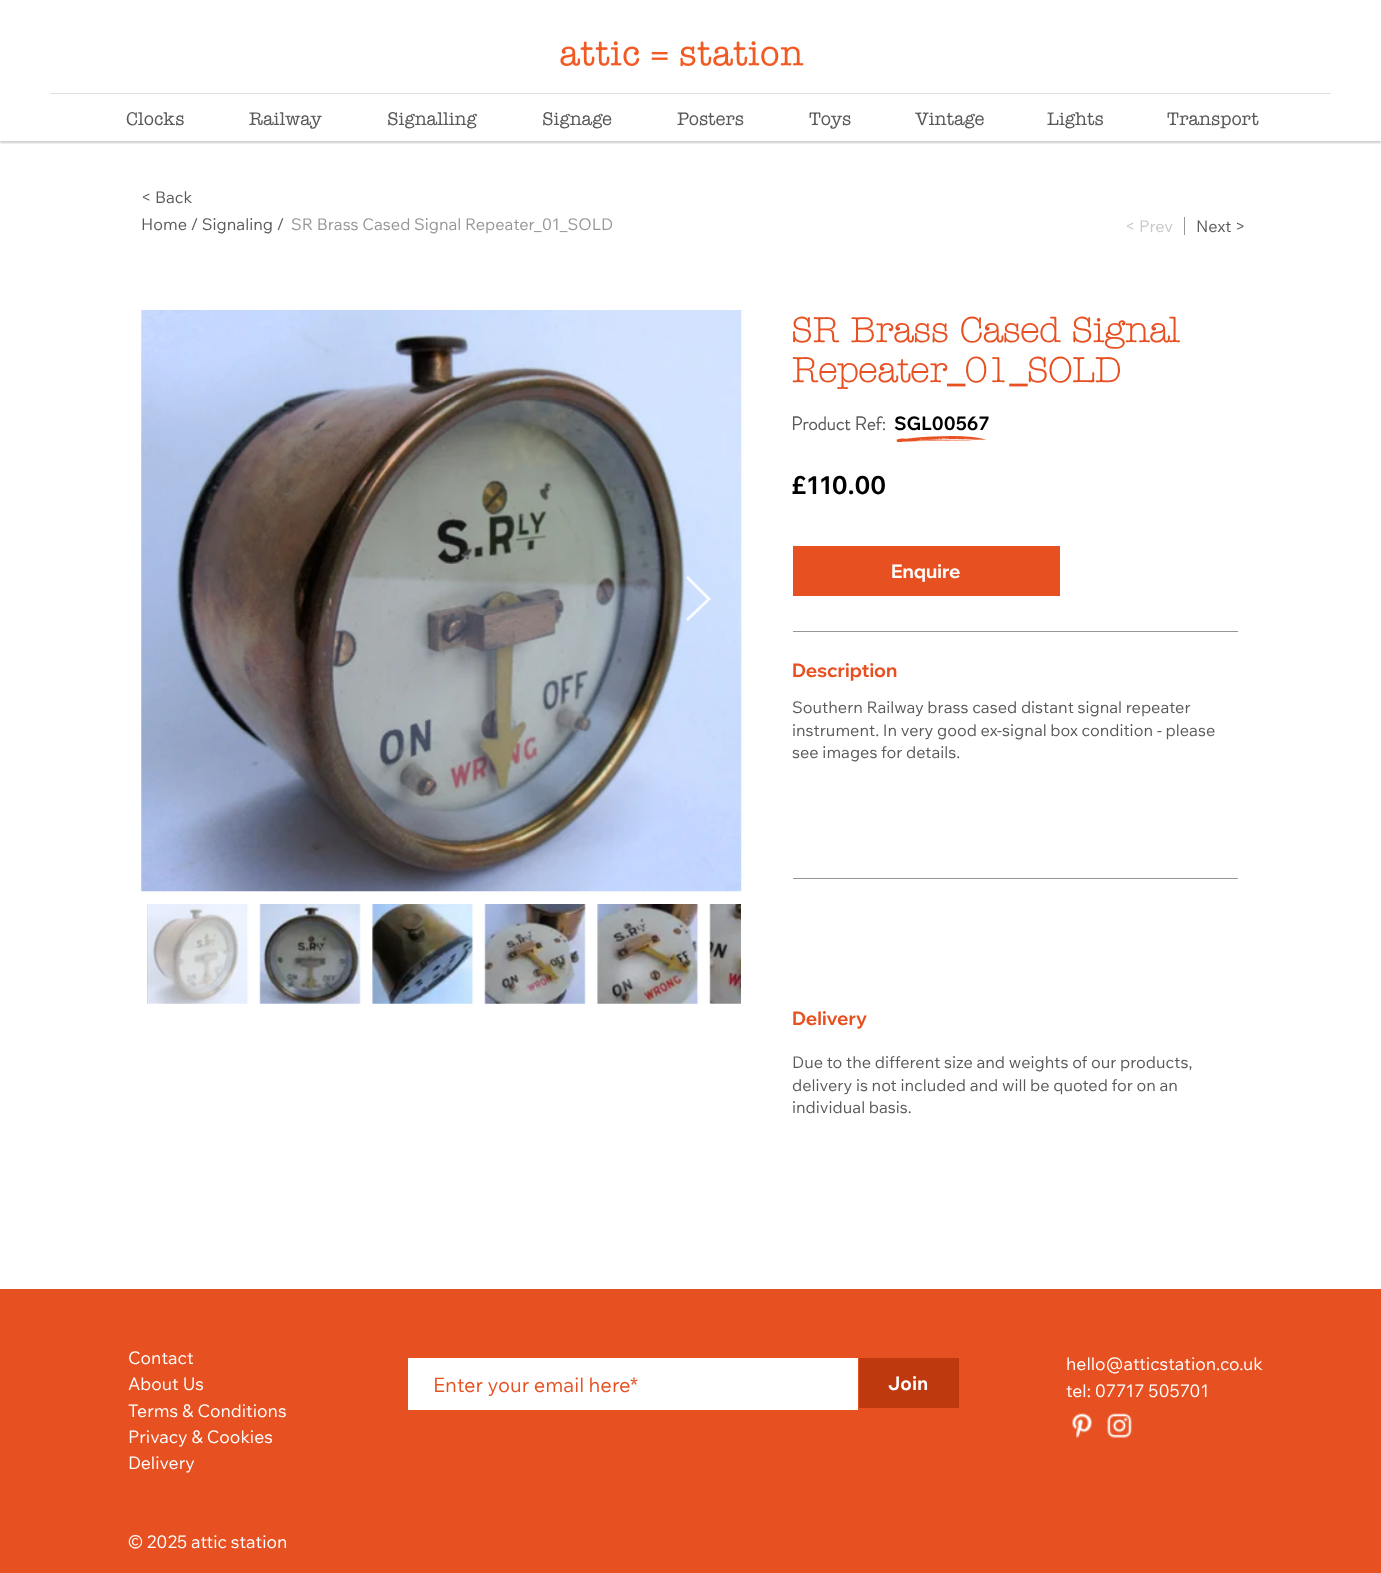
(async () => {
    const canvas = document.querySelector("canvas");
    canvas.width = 1381;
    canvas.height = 1573;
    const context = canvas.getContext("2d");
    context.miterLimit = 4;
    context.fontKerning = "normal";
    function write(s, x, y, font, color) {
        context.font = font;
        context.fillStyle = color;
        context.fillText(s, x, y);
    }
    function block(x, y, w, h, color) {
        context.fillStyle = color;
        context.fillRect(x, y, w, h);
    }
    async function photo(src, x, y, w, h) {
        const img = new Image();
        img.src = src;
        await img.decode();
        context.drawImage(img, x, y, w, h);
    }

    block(0, 0, 1381, 1573, "rgb(255, 255, 255)");
    context.save();
    context.beginPath();
    context.rect(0, 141, 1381, 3);
    context.clip();
    context.fillStyle = "rgba(0, 0, 0, 0.2)";
    context.filter = "blur(1px)";
    context.beginPath();
    context.rect(0, 1, 1381, 142);
    context.fill();
    context.filter = "none";
    context.restore();
    await photo("media/1.png", 560, 41, 244, 26);
    block(50, 93, 1281, 1, "rgb(224, 224, 224)");
    write("Clocks", 126, 125, "18.75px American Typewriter", "rgb(89, 89, 89)");
    write("Railway", 249, 125, "18.75px American Typewriter", "rgb(89, 89, 89)");
    write("Signalling", 387, 125, "18.75px American Typewriter", "rgb(89, 89, 89)");
    write("Signage", 542, 125, "18.75px American Typewriter", "rgb(89, 89, 89)");
    write("Posters", 677, 125, "18.75px American Typewriter", "rgb(89, 89, 89)");
    write("Toys", 809, 125, "18.75px American Typewriter", "rgb(89, 89, 89)");
    write("Vintage", 915, 125, "18.75px American Typewriter", "rgb(89, 89, 89)");
    write("Lights", 1047, 125, "18.75px American Typewriter", "rgb(89, 89, 89)");
    write("Transport", 1167, 125, "18.75px American Typewriter", "rgb(89, 89, 89)");
    write("< Back", 141, 203, "16.25px Wix Madefor Text", "rgb(89, 89, 89)");
    write("Home / Signaling /", 141, 230, "16.25px Wix Madefor Text", "rgb(89, 89, 89)");
    write("SR Brass Cased Signal Repeater_01_SOLD", 291, 230, "16.25px Wix Madefor Text", "rgb(150, 150, 150)");
    write("< Prev", 1125, 232, "16.25px Wix Madefor Text", "rgb(199, 199, 199)");
    block(1184, 217, 1, 18, "rgb(150, 150, 150)");
    write("Next >", 1196, 232, "16.25px Wix Madefor Text", "rgb(89, 89, 89)");
    await photo("media/2.png", 141, 310, 601, 582);
    context.fillStyle = "rgba(255, 255, 255, 0.9)";
    context.beginPath();
    context.moveTo(686, 578);
    context.lineTo(688, 576);
    context.lineTo(711, 599);
    context.lineTo(688, 621);
    context.lineTo(686, 619);
    context.lineTo(707, 599);
    context.closePath();
    context.fill();
    await photo("media/3.png", 147, 904, 102, 100);
    await photo("media/4.png", 259, 904, 102, 100);
    await photo("media/5.png", 372, 904, 102, 100);
    await photo("media/6.png", 484, 904, 102, 100);
    await photo("media/7.png", 597, 904, 102, 100);
    await photo("media/8.png", 709, 904, 32, 100);
    write("SR Brass Cased Signal", 791, 342, "bold 35px 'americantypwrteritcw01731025'", "rgb(231, 81, 34)");
    write("Repeater_01_SOLD", 791, 382, "bold 35px 'americantypwrteritcw01731025'", "rgb(231, 81, 34)");
    write("Product Ref:", 791, 430, "bold 18.75px 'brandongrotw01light'", "rgb(89, 89, 89)");
    write("SGL00567", 894, 430, "bold 18.75px Wix Madefor Text", "rgb(0, 0, 0)");
    await photo("media/9.png", 896, 434, 90, 9);
    write("£110.00", 791, 494, "bold 25px Wix Madefor Text", "rgb(0, 0, 0)");
    block(793, 546, 267, 50, "rgb(231, 81, 34)");
    write("Enquire", 891, 578, "bold 18.75px Wix Madefor Display", "rgb(255, 255, 255)");
    block(793, 631, 445, 1, "rgb(150, 150, 150)");
    write("Description", 792, 677, "bold 18.75px Wix Madefor Display", "rgb(231, 81, 34)");
    write("Southern Railway brass cased distant signal repeater", 792, 713, "16.25px Wix Madefor Text", "rgb(89, 89, 89)");
    write("instrument. In very good ex-signal box condition - please", 792, 736, "16.25px Wix Madefor Text", "rgb(89, 89, 89)");
    write("see images for details.", 792, 758, "16.25px Wix Madefor Text", "rgb(89, 89, 89)");
    block(793, 878, 445, 1, "rgb(150, 150, 150)");
    write("Delivery", 792, 1025, "bold 18.75px Wix Madefor Display", "rgb(231, 81, 34)");
    write("Due to the different size and weights of our products,", 792, 1068, "16.25px Wix Madefor Text", "rgb(89, 89, 89)");
    write("delivery is not included and will be quoted for on an", 792, 1091, "16.25px Wix Madefor Text", "rgb(89, 89, 89)");
    write("individual basis.", 792, 1113, "16.25px Wix Madefor Text", "rgb(89, 89, 89)");
    block(0, 1289, 1381, 284, "rgb(231, 81, 34)");
    write("Contact", 128, 1364, "17.5px Wix Madefor Text", "rgb(255, 255, 255)");
    write("About Us", 128, 1390, "17.5px Wix Madefor Text", "rgb(255, 255, 255)");
    write("Terms & Conditions", 128, 1417, "17.5px Wix Madefor Text", "rgb(255, 255, 255)");
    write("Privacy & Cookies", 128, 1443, "17.5px Wix Madefor Text", "rgb(255, 255, 255)");
    write("Delivery", 128, 1469, "17.5px Wix Madefor Text", "rgb(255, 255, 255)");
    write("© 2025 attic station", 128, 1548, "17.5px Wix Madefor Text", "rgb(255, 255, 255)");
    block(408, 1358, 450, 52, "rgb(255, 255, 255)");
    write("Enter your email here*", 433, 1392, "20px Wix Madefor Text", "rgb(231, 81, 34)");
    block(859, 1358, 100, 50, "rgb(191, 57, 15)");
    write("Join", 888, 1390, "bold 18.75px Wix Madefor Text", "rgb(255, 255, 255)");
    write("hello@atticstation.co.uk", 1066, 1370, "17.5px Wix Madefor Text", "rgb(255, 255, 255)");
    write("tel: 07717 505701", 1066, 1397, "17.5px Wix Madefor Text", "rgb(255, 255, 255)");
    await photo("media/10.png", 1072, 1413, 21, 25);
    await photo("media/11.png", 1107, 1413, 25, 25);
})();
